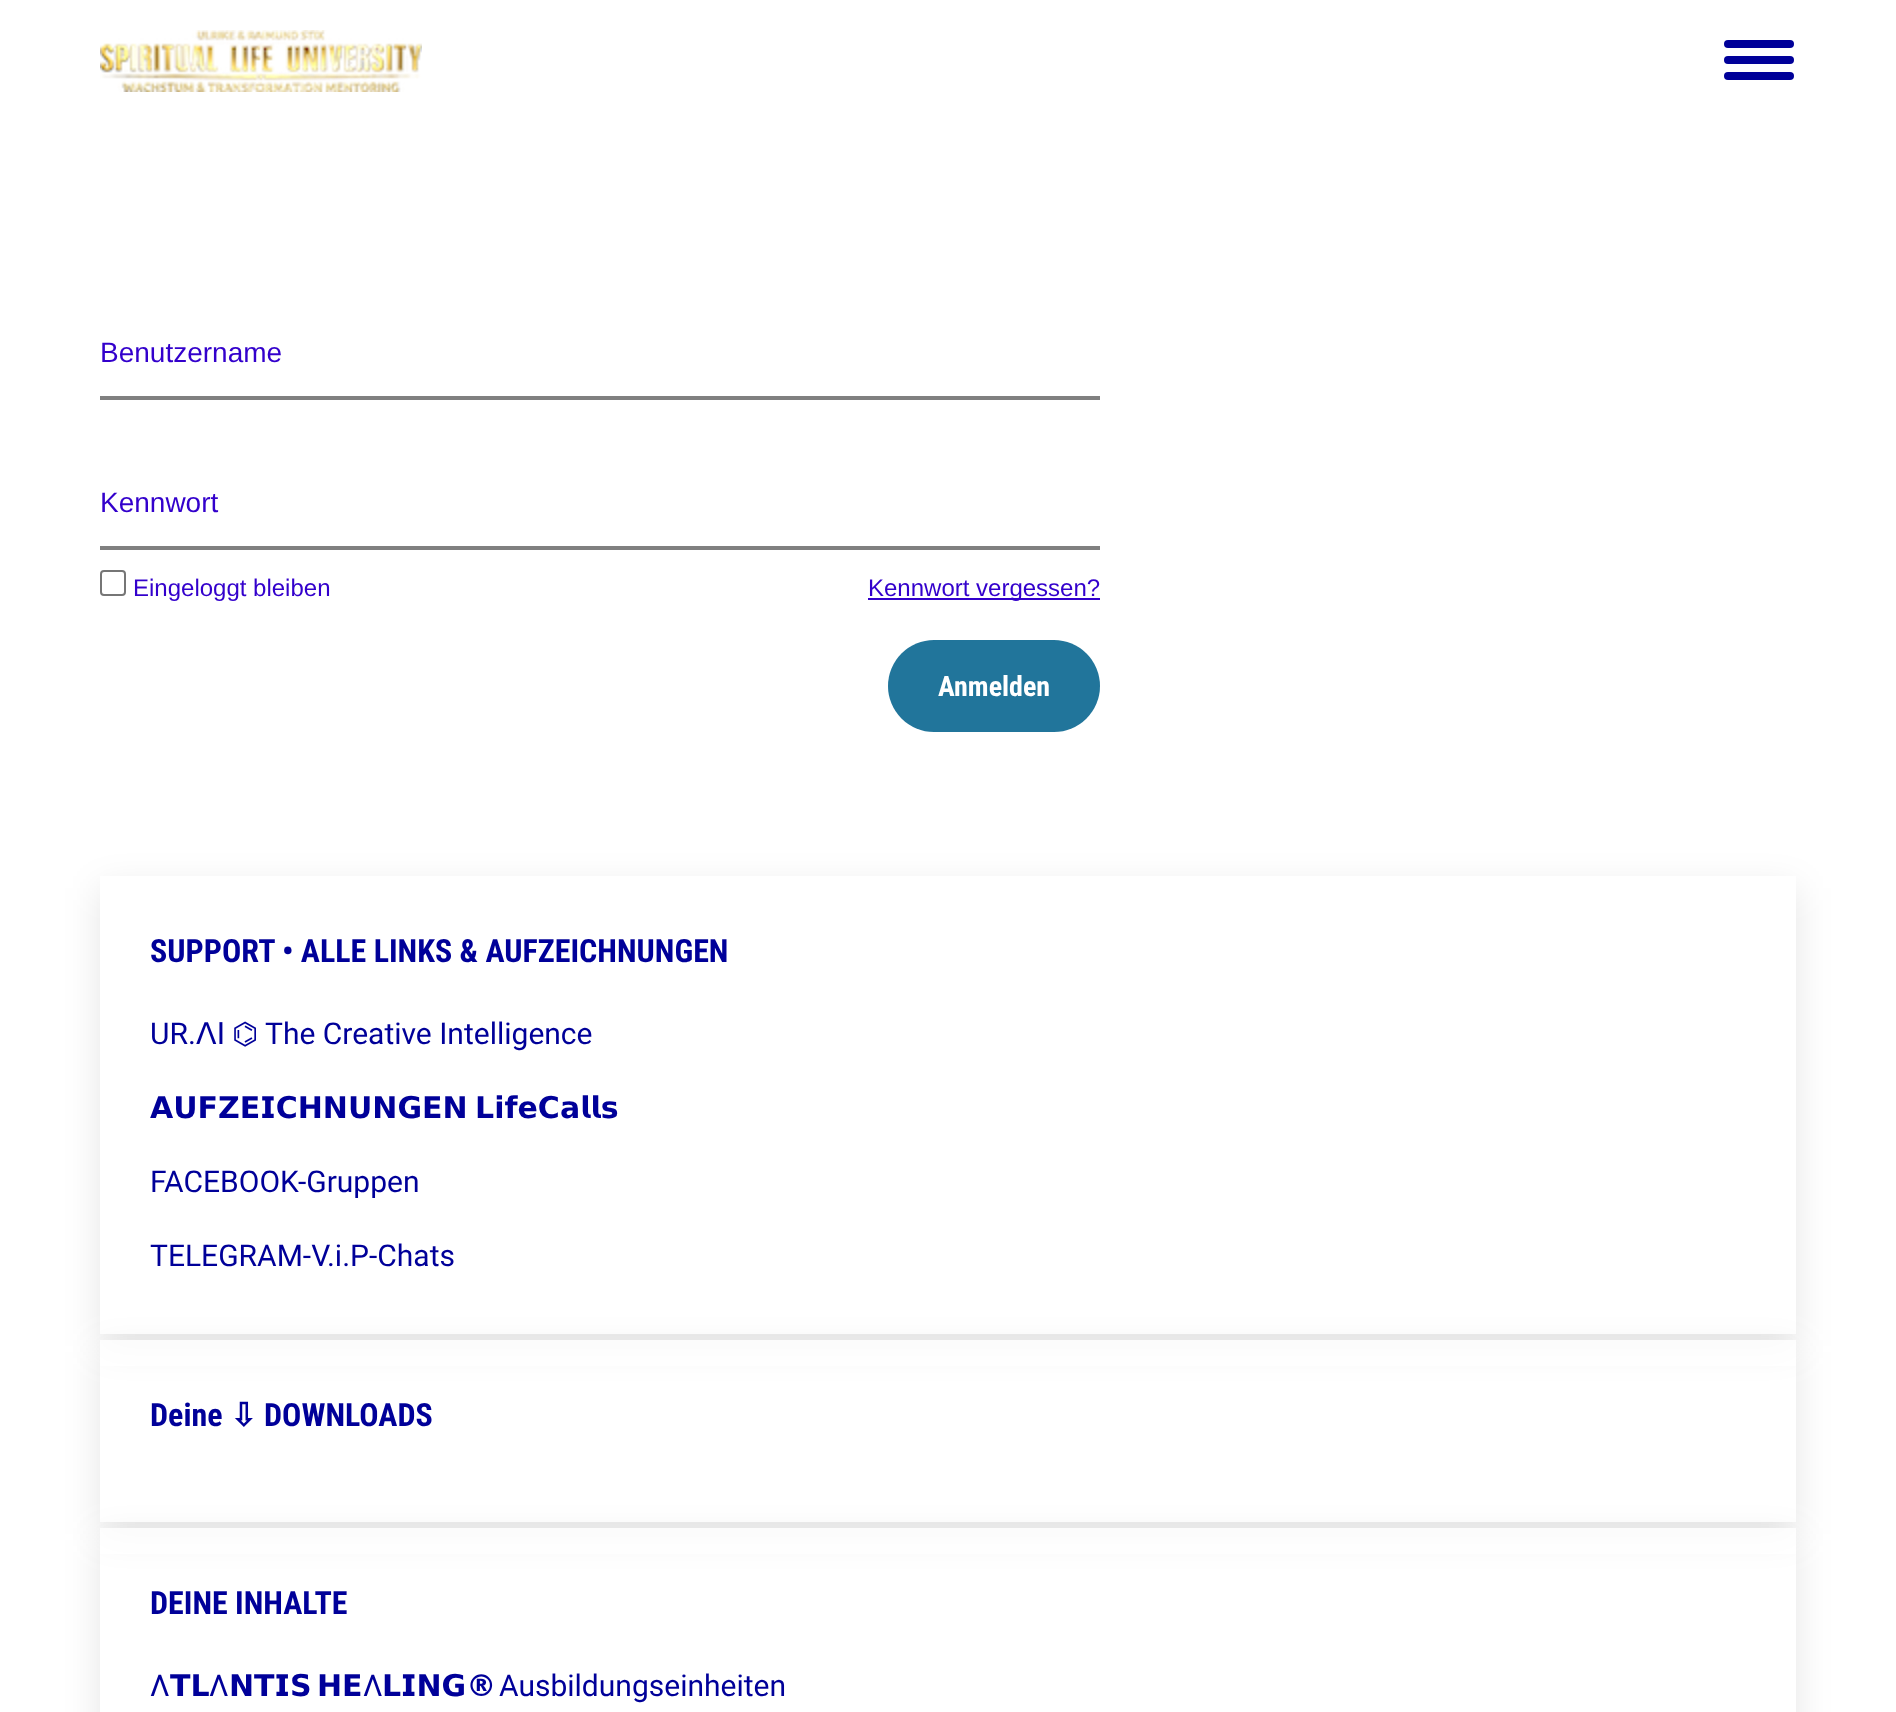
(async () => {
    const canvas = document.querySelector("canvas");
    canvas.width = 1896;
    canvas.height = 1712;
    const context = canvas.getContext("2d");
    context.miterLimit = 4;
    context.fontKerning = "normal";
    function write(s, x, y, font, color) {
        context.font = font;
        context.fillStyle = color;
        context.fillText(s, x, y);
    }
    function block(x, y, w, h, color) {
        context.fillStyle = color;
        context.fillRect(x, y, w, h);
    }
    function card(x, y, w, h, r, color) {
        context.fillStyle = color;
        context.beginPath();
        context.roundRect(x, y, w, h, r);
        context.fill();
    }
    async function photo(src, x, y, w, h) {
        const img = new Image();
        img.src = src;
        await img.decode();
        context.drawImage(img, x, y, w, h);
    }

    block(0, 0, 1896, 1712, "rgb(255, 255, 255)");
    await photo("media/1.png", 100, 30, 322, 62);
    card(1724, 40, 70, 8, 4, "rgb(0, 0, 153)");
    card(1724, 56, 70, 8, 4, "rgb(0, 0, 153)");
    card(1724, 72, 70, 8, 4, "rgb(0, 0, 153)");
    write("Benutzername", 100, 362, "28px Liberation Sans", "rgb(51, 0, 204)");
    block(100, 396, 1000, 4, "rgb(128, 128, 128)");
    write("Kennwort", 100, 512, "28px Liberation Sans", "rgb(51, 0, 204)");
    block(100, 546, 1000, 4, "rgb(128, 128, 128)");
    context.beginPath();
    context.roundRect(101, 571, 24, 24, 3);
    context.strokeStyle = "rgb(118, 118, 118)";
    context.lineWidth = 2;
    context.stroke();
    write("Eingeloggt bleiben", 133, 596, "24px Liberation Sans", "rgb(51, 0, 204)");
    block(868, 598, 232, 2, "rgb(51, 0, 204)");
    write("Kennwort vergessen?", 868, 596, "24px Liberation Sans", "rgb(51, 0, 204)");
    card(888, 640, 212, 92, 46, "rgb(33, 117, 155)");
    write("Anmelden", 938, 696, "bold 28px Roboto Condensed", "rgb(255, 255, 255)");
    context.save();
    context.beginPath();
    context.moveTo(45, 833);
    context.lineTo(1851, 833);
    context.lineTo(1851, 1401);
    context.lineTo(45, 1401);
    context.closePath();
    context.moveTo(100, 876);
    context.lineTo(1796, 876);
    context.lineTo(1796, 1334);
    context.lineTo(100, 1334);
    context.closePath();
    context.clip("evenodd");
    context.fillStyle = "rgba(0, 0, 0, 0.1)";
    context.filter = "blur(18px)";
    context.beginPath();
    context.rect(100, 888, 1696, 458);
    context.fill();
    context.filter = "none";
    context.restore();
    write("SUPPORT • ALLE LINKS & AUFZEICHNUNGEN", 150, 962, "bold 32px Roboto Condensed", "rgb(0, 0, 153)");
    write("UR.", 150, 1044, "30px Roboto", "rgb(0, 0, 153)");
    write("ΛΙ", 196, 1044, "30px DejaVu Sans", "rgb(0, 0, 153)");
    write("⌬", 232, 1044, "30px DejaVu Sans", "rgb(0, 0, 153)");
    write("The Creative Intelligence", 265, 1044, "30px Roboto", "rgb(0, 0, 153)");
    context.wordSpacing = "-3px";
    write("𝗔𝗨𝗙𝗭𝗘𝗜𝗖𝗛𝗡𝗨𝗡𝗚𝗘𝗡 𝗟𝗶𝗳𝗲𝗖𝗮𝗹𝗹𝘀", 150, 1118, "bold 30px 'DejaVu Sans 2'", "rgb(0, 0, 153)");
    context.wordSpacing = "0px";
    write("FACEBOOK-Gruppen", 150, 1192, "30px Roboto", "rgb(0, 0, 153)");
    write("TELEGRAM-V.i.P-Chats", 150, 1266, "30px Roboto", "rgb(0, 0, 153)");
    context.save();
    context.beginPath();
    context.moveTo(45, 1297);
    context.lineTo(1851, 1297);
    context.lineTo(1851, 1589);
    context.lineTo(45, 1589);
    context.closePath();
    context.moveTo(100, 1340);
    context.lineTo(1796, 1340);
    context.lineTo(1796, 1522);
    context.lineTo(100, 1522);
    context.closePath();
    context.clip("evenodd");
    context.fillStyle = "rgba(0, 0, 0, 0.1)";
    context.filter = "blur(18px)";
    context.beginPath();
    context.rect(100, 1352, 1696, 182);
    context.fill();
    context.filter = "none";
    context.restore();
    block(100, 1340, 1696, 26, "rgba(255, 255, 255, 0.77)");
    write("Deine", 150, 1426, "bold 32px Roboto Condensed", "rgb(0, 0, 153)");
    write("⇩", 230, 1426, "bold 32px DejaVu Sans", "rgb(0, 0, 153)");
    write("DOWNLOADS", 264, 1426, "bold 32px Roboto Condensed", "rgb(0, 0, 153)");
    context.save();
    context.beginPath();
    context.moveTo(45, 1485);
    context.lineTo(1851, 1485);
    context.lineTo(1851, 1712);
    context.lineTo(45, 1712);
    context.closePath();
    context.moveTo(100, 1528);
    context.lineTo(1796, 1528);
    context.lineTo(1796, 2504);
    context.lineTo(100, 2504);
    context.closePath();
    context.clip("evenodd");
    context.fillStyle = "rgba(0, 0, 0, 0.1)";
    context.filter = "blur(18px)";
    context.beginPath();
    context.rect(100, 1540, 1696, 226);
    context.fill();
    context.filter = "none";
    context.restore();
    block(100, 1528, 1696, 26, "rgba(255, 255, 255, 0.77)");
    write("DEINE INHALTE", 150, 1614, "bold 32px Roboto Condensed", "rgb(0, 0, 153)");
    write("Λ", 150, 1696, "30px Roboto", "rgb(0, 0, 153)");
    write("𝗧𝗟", 170, 1696, "bold 30px 'DejaVu Sans 2'", "rgb(0, 0, 153)");
    write("Λ", 209, 1696, "30px Roboto", "rgb(0, 0, 153)");
    context.wordSpacing = "-5px";
    write("𝗡𝗧𝗜𝗦 𝗛𝗘", 229, 1696, "bold 30px 'DejaVu Sans 2'", "rgb(0, 0, 153)");
    context.wordSpacing = "0px";
    write("Λ", 363, 1696, "30px Roboto", "rgb(0, 0, 153)");
    write("𝗟𝗜𝗡𝗚®", 382, 1696, "bold 30px 'DejaVu Sans 2'", "rgb(0, 0, 153)");
    write("Ausbildungseinheiten", 499, 1696, "30px Roboto", "rgb(0, 0, 153)");
})();
